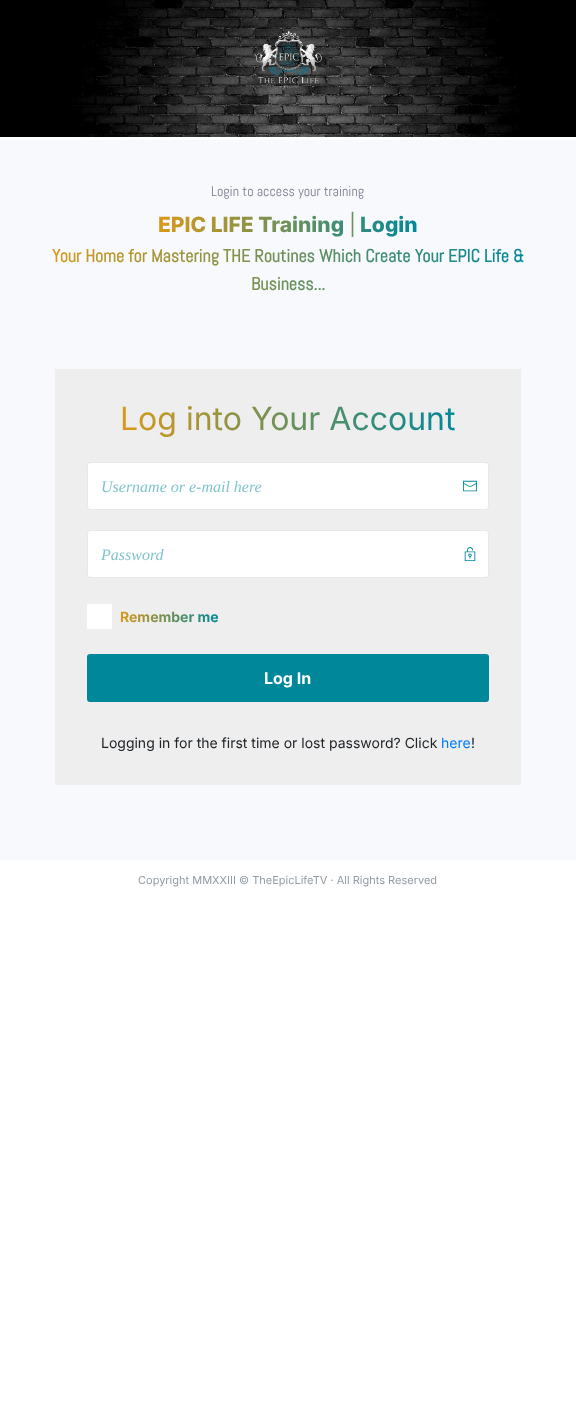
(async () => {
    const canvas = document.querySelector("canvas");
    canvas.width = 576;
    canvas.height = 1406;
    const context = canvas.getContext("2d");
    context.miterLimit = 4;
    context.fontKerning = "normal";
    function write(s, x, y, font, color) {
        context.font = font;
        context.fillStyle = color;
        context.fillText(s, x, y);
    }
    function block(x, y, w, h, color) {
        context.fillStyle = color;
        context.fillRect(x, y, w, h);
    }
    function card(x, y, w, h, r, color) {
        context.fillStyle = color;
        context.beginPath();
        context.roundRect(x, y, w, h, r);
        context.fill();
    }
    async function photo(src, x, y, w, h) {
        const img = new Image();
        img.src = src;
        await img.decode();
        context.drawImage(img, x, y, w, h);
    }
    let gradient;

    block(0, 0, 576, 1406, "rgb(255, 255, 255)");
    await photo("media/1.png", 0, 0, 576, 137);
    await photo("media/2.png", 256, 31, 66, 57);
    block(0, 140, 576, 720, "rgb(247, 249, 253)");
    write("Login to access your training", 211, 196, "14px Abel", "rgb(121, 125, 142)");
    context.font = "800 21px Inter";
    gradient = context.createLinearGradient(158, 225, 418, 225);
    gradient.addColorStop(0, "rgb(217, 153, 25)");
    gradient.addColorStop(1, "rgb(0, 136, 154)");
    context.fillStyle = gradient;
    context.fillText("EPIC LIFE Training", 158, 232);
    context.font = "21px Inter";
    gradient = context.createLinearGradient(349, 225, 356, 225);
    gradient.addColorStop(0, "rgb(217, 153, 25)");
    gradient.addColorStop(1, "rgb(0, 136, 154)");
    context.fillStyle = gradient;
    context.fillText("|", 349, 232);
    context.font = "800 21px Inter";
    gradient = context.createLinearGradient(158, 225, 418, 225);
    gradient.addColorStop(0, "rgb(217, 153, 25)");
    gradient.addColorStop(1, "rgb(0, 136, 154)");
    context.fillStyle = gradient;
    context.fillText("Login", 360, 232);
    context.font = "bold 18px Abel";
    gradient = context.createLinearGradient(52, 270, 524, 270);
    gradient.addColorStop(0, "rgb(217, 153, 25)");
    gradient.addColorStop(1, "rgb(0, 136, 154)");
    context.fillStyle = gradient;
    context.fillText("Your Home for Mastering THE Routines Which Create Your EPIC Life &", 52, 262);
    context.fillText("Business...", 251, 290);
    block(55, 369, 466, 416, "rgb(238, 238, 238)");
    context.font = "32px Inter";
    gradient = context.createLinearGradient(120, 419, 456, 419);
    gradient.addColorStop(0, "rgb(217, 153, 25)");
    gradient.addColorStop(1, "rgb(0, 136, 154)");
    context.fillStyle = gradient;
    context.fillText("Log into Your Account", 120, 430);
    context.fillStyle = "rgb(255, 255, 255)";
    context.beginPath();
    context.roundRect(87.5, 462.5, 401, 47, 2.5);
    context.fill();
    context.strokeStyle = "rgb(232, 232, 232)";
    context.stroke();
    write("Username or e-mail here", 101, 492, "italic 16px Liberation Serif", "rgb(128, 196, 205)");
    await photo("media/3.png", 463, 480, 14, 12);
    context.fillStyle = "rgb(255, 255, 255)";
    context.beginPath();
    context.roundRect(87.5, 530.5, 401, 47, 2.5);
    context.fill();
    context.stroke();
    write("Password", 101, 560, "italic 16px Liberation Serif", "rgb(128, 196, 205)");
    await photo("media/4.png", 464, 547, 12, 14);
    block(87, 604, 25, 25, "rgb(255, 255, 255)");
    context.font = "bold 14px Inter";
    gradient = context.createLinearGradient(120, 616, 219, 616);
    gradient.addColorStop(0, "rgb(217, 153, 25)");
    gradient.addColorStop(1, "rgb(0, 136, 154)");
    context.fillStyle = gradient;
    context.fillText("Remember me", 120, 622);
    card(87, 654, 402, 48, 3, "rgb(0, 136, 154)");
    write("Log In", 264, 684, "bold 16px Inter", "rgb(255, 255, 255)");
    write("Logging in for the first time or lost password? Click", 101, 748, "14px Inter", "rgb(33, 37, 41)");
    write("here", 441, 748, "14px Inter", "rgb(0, 123, 255)");
    write("!", 471, 748, "14px Inter", "rgb(33, 37, 41)");
    write("Copyright MMXXIII © TheEpicLifeTV · All Rights Reserved", 138, 884, "11px Inter", "rgb(144, 155, 166)");
})();
